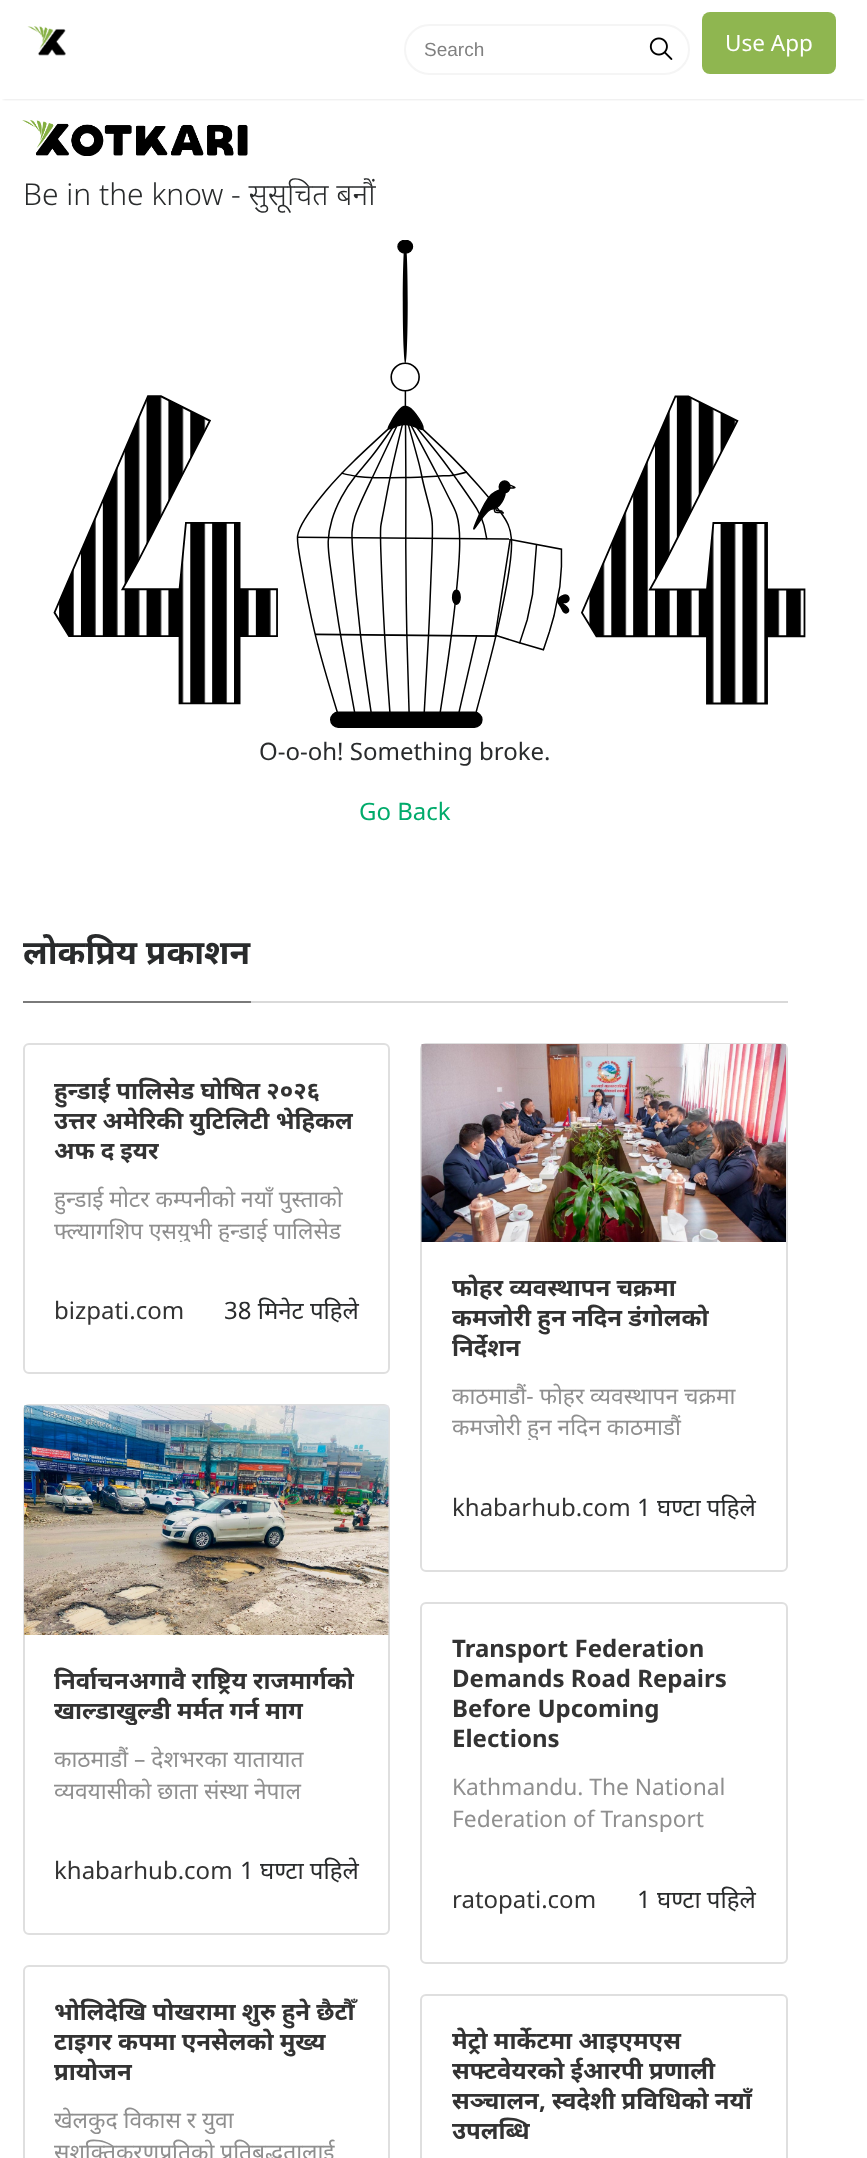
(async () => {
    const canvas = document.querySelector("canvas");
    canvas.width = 867;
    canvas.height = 2158;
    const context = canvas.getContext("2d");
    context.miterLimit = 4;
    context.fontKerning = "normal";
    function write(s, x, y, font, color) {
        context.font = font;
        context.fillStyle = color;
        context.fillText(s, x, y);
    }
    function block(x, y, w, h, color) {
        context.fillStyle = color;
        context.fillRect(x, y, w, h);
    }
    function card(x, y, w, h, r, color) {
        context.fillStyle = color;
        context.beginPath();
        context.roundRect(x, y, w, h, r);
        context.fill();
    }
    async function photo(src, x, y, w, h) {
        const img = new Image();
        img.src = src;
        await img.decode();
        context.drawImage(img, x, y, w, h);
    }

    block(0, 0, 867, 2158, "rgb(255, 255, 255)");
    context.save();
    context.beginPath();
    context.rect(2, 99, 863, 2);
    context.clip();
    context.fillStyle = "rgba(0, 0, 0, 0.15)";
    context.filter = "blur(1.5px)";
    context.beginPath();
    context.rect(3, 6, 861, 93);
    context.fill();
    context.filter = "none";
    context.restore();
    await photo("media/1.png", 27, 26, 39, 30);
    context.beginPath();
    context.roundRect(405, 25, 284, 49, 24.5);
    context.strokeStyle = "rgb(245, 245, 245)";
    context.lineWidth = 2;
    context.stroke();
    write("Search", 424, 56, "19px Liberation Sans", "rgb(128, 128, 128)");
    await photo("media/2.png", 649, 37, 24, 23);
    card(702, 12, 134, 62, 8, "rgb(143, 182, 80)");
    write("Use App", 725, 51, "22.5px Noto Sans", "rgb(255, 255, 255)");
    await photo("media/3.png", 22, 120, 226, 36);
    write("Be in the know - सुसूचित बनौं", 23, 205, "300 30px Noto Sans", "rgb(41, 43, 44)");
    await photo("media/4.png", 53, 240, 753, 488);
    write("O-o-oh! Something broke.", 259, 760, "24px Noto Sans", "rgb(41, 43, 44)");
    write("Go Back", 359, 820, "24px Noto Sans", "rgb(0, 171, 107)");
    block(251, 1001, 537, 2, "rgb(217, 217, 217)");
    block(23, 1001, 228, 2, "rgb(122, 122, 122)");
    write("लोकप्रिय प्रकाशन", 23, 964, "bold 33.5px Noto Sans", "rgb(41, 43, 44)");
    context.beginPath();
    context.roundRect(24, 1044, 365, 329, 5);
    context.strokeStyle = "rgb(223, 223, 223)";
    context.stroke();
    write("हुन्डाई पालिसेड घोषित २०२६", 54, 1099, "bold 24px Noto Sans", "rgb(51, 51, 51)");
    write("उत्तर अमेरिकी युटिलिटी भेहिकल", 54, 1129, "bold 24px Noto Sans", "rgb(51, 51, 51)");
    write("अफ द इयर", 54, 1159, "bold 24px Noto Sans", "rgb(51, 51, 51)");
    write("हुन्डाई मोटर कम्पनीको नयाँ पुस्ताको", 54, 1207, "22.75px Noto Sans", "rgb(143, 143, 143)");
    context.save();
    context.beginPath();
    context.rect(54, 1182, 305, 60);
    context.clip();
    write("फ्ल्यागशिप एसयुभी हुन्डाई पालिसेड", 54, 1239, "22.75px Noto Sans", "rgb(143, 143, 143)");
    context.restore();
    write("bizpati.com", 54, 1319, "24px Noto Sans", "rgb(51, 51, 51)");
    write("38 मिनेट पहिले", 224, 1319, "24px Noto Sans", "rgb(41, 43, 44)");
    context.beginPath();
    context.roundRect(421, 1044, 366, 527, 5);
    context.stroke();
    await photo("media/5.png", 421, 1044, 365, 198);
    context.save();
    context.beginPath();
    context.rect(452, 1272, 304, 90);
    context.clip();
    write("फोहर व्यवस्थापन चक्रमा", 452, 1296, "bold 24px Noto Sans", "rgb(51, 51, 51)");
    write("कमजोरी हुन नदिन डंगोलको", 452, 1326, "bold 24px Noto Sans", "rgb(51, 51, 51)");
    write("निर्देशन", 452, 1356, "bold 24px Noto Sans", "rgb(51, 51, 51)");
    context.restore();
    context.save();
    context.beginPath();
    context.rect(452, 1380, 304, 60);
    context.clip();
    write("काठमाडौं- फोहर व्यवस्थापन चक्रमा", 452, 1404, "22.75px Noto Sans", "rgb(143, 143, 143)");
    write("कमजोरी हुन नदिन काठमाडौं", 452, 1435, "22.75px Noto Sans", "rgb(143, 143, 143)");
    context.restore();
    write("khabarhub.com", 452, 1516, "24px Noto Sans", "rgb(51, 51, 51)");
    write("1 घण्टा पहिले", 637, 1516, "24px Noto Sans", "rgb(41, 43, 44)");
    context.beginPath();
    context.roundRect(24, 1405, 365, 529, 5);
    context.stroke();
    await photo("media/6.png", 24, 1405, 365, 230);
    write("निर्वाचनअगावै राष्ट्रिय राजमार्गको", 54, 1689, "bold 24px Noto Sans", "rgb(51, 51, 51)");
    context.save();
    context.beginPath();
    context.rect(54, 1665, 305, 60);
    context.clip();
    write("खाल्डाखुल्डी मर्मत गर्न माग", 54, 1719, "bold 24px Noto Sans", "rgb(51, 51, 51)");
    context.restore();
    write("काठमाडौं – देशभरका यातायात", 54, 1767, "22.75px Noto Sans", "rgb(143, 143, 143)");
    write("व्यवयासीको छाता संस्था नेपाल", 54, 1799, "22.75px Noto Sans", "rgb(143, 143, 143)");
    write("khabarhub.com", 54, 1879, "24px Noto Sans", "rgb(51, 51, 51)");
    write("1 घण्टा पहिले", 240, 1879, "24px Noto Sans", "rgb(41, 43, 44)");
    context.beginPath();
    context.roundRect(421, 1603, 366, 360, 5);
    context.stroke();
    write("Transport Federation", 452, 1657, "bold 24px Noto Sans", "rgb(51, 51, 51)");
    write("Demands Road Repairs", 452, 1687, "bold 24px Noto Sans", "rgb(51, 51, 51)");
    write("Before Upcoming", 452, 1717, "bold 24px Noto Sans", "rgb(51, 51, 51)");
    write("Elections", 452, 1747, "bold 24px Noto Sans", "rgb(51, 51, 51)");
    write("Kathmandu. The National", 452, 1795, "22.75px Noto Sans", "rgb(143, 143, 143)");
    context.save();
    context.beginPath();
    context.rect(452, 1772, 304, 60);
    context.clip();
    write("Federation of Transport", 452, 1827, "22.75px Noto Sans", "rgb(143, 143, 143)");
    context.restore();
    write("ratopati.com", 452, 1908, "24px Noto Sans", "rgb(51, 51, 51)");
    write("1 घण्टा पहिले", 637, 1908, "24px Noto Sans", "rgb(41, 43, 44)");
    context.beginPath();
    context.roundRect(24, 1966, 365, 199, 5);
    context.stroke();
    context.save();
    context.beginPath();
    context.rect(54, 1997, 305, 90);
    context.clip();
    write("भोलिदेखि पोखरामा शुरु हुने छैटौँ", 54, 2020, "bold 24px Noto Sans", "rgb(51, 51, 51)");
    context.restore();
    write("टाइगर कपमा एनसेलको मुख्य", 54, 2050, "bold 24px Noto Sans", "rgb(51, 51, 51)");
    write("प्रायोजन", 54, 2080, "bold 24px Noto Sans", "rgb(51, 51, 51)");
    context.save();
    context.beginPath();
    context.rect(54, 2105, 305, 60);
    context.clip();
    write("खेलकुद विकास र युवा", 54, 2128, "22.75px Noto Sans", "rgb(143, 143, 143)");
    context.restore();
    write("सशक्तिकरणप्रतिको प्रतिबद्धतालाई", 54, 2160, "22.75px Noto Sans", "rgb(143, 143, 143)");
    context.beginPath();
    context.roundRect(421, 1995, 366, 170, 5);
    context.stroke();
    context.save();
    context.beginPath();
    context.rect(452, 2025, 304, 120);
    context.clip();
    write("मेट्रो मार्केटमा आइएमएस", 452, 2049, "bold 24px Noto Sans", "rgb(51, 51, 51)");
    write("सफ्टवेयरको ईआरपी प्रणाली", 452, 2079, "bold 24px Noto Sans", "rgb(51, 51, 51)");
    write("सञ्चालन, स्वदेशी प्रविधिको नयाँ", 452, 2109, "bold 24px Noto Sans", "rgb(51, 51, 51)");
    write("उपलब्धि", 452, 2139, "bold 24px Noto Sans", "rgb(51, 51, 51)");
    context.restore();
})();
